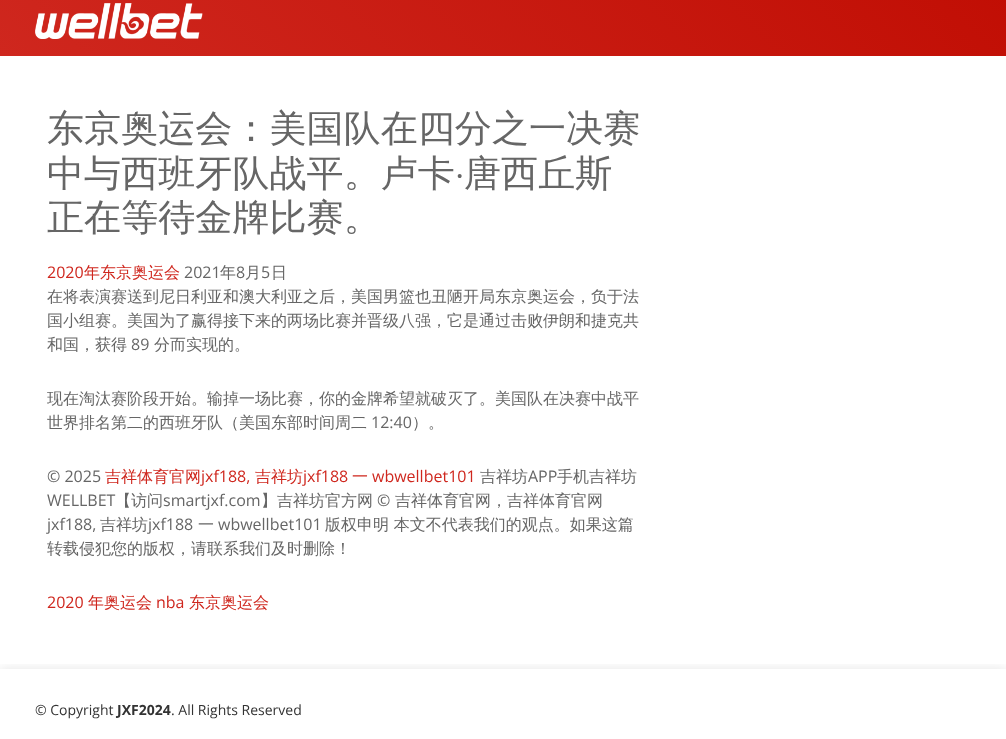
(async () => {
    const canvas = document.querySelector("canvas");
    canvas.width = 1006;
    canvas.height = 739;
    const context = canvas.getContext("2d");
    context.miterLimit = 4;
    context.fontKerning = "normal";
    function write(s, x, y, font, color) {
        context.font = font;
        context.fillStyle = color;
        context.fillText(s, x, y);
    }
    function block(x, y, w, h, color) {
        context.fillStyle = color;
        context.fillRect(x, y, w, h);
    }
    async function photo(src, x, y, w, h) {
        const img = new Image();
        img.src = src;
        await img.decode();
        context.drawImage(img, x, y, w, h);
    }
    let gradient;

    block(0, 0, 1006, 739, "rgb(255, 255, 255)");
    gradient = context.createLinearGradient(234, 290, 772, -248);
    gradient.addColorStop(0, "rgb(207, 39, 30)");
    gradient.addColorStop(1, "rgb(193, 14, 4)");
    context.fillStyle = gradient;
    context.fillRect(0, 0, 1006, 56);
    await photo("media/1.png", 35, 3, 168, 36);
    write("东京奥运会：美国队在四分之一决赛", 47, 141, "500 37.1px WenQuanYi Zen Hei", "rgb(102, 102, 102)");
    write("中与西班牙队战平。卢卡", 47, 186, "500 37.1px WenQuanYi Zen Hei", "rgb(102, 102, 102)");
    write("·", 455, 186, "37.1px Montserrat", "rgb(102, 102, 102)");
    write("唐西丘斯", 464, 186, "500 37.1px WenQuanYi Zen Hei", "rgb(102, 102, 102)");
    write("正在等待金牌比赛。", 47, 230, "500 37.1px WenQuanYi Zen Hei", "rgb(102, 102, 102)");
    write("2020", 47, 278, "16px Open Sans", "rgb(207, 39, 30)");
    write("年东京奥运会", 84, 278, "500 16px WenQuanYi Zen Hei", "rgb(207, 39, 30)");
    write("2021", 184, 278, "16px Open Sans", "rgb(102, 102, 102)");
    write("年", 220, 278, "500 16px WenQuanYi Zen Hei", "rgb(102, 102, 102)");
    write("8", 236, 278, "16px Open Sans", "rgb(102, 102, 102)");
    write("月", 245, 278, "500 16px WenQuanYi Zen Hei", "rgb(102, 102, 102)");
    write("5", 261, 278, "16px Open Sans", "rgb(102, 102, 102)");
    write("日", 271, 278, "500 16px WenQuanYi Zen Hei", "rgb(102, 102, 102)");
    write("在将表演赛送到尼日利亚和澳大利亚之后，美国男篮也丑陋开局东京奥运会，负于法", 47, 302, "500 16px WenQuanYi Zen Hei", "rgb(102, 102, 102)");
    write("国小组赛。美国为了赢得接下来的两场比赛并晋级八强，它是通过击败伊朗和捷克共", 47, 326, "500 16px WenQuanYi Zen Hei", "rgb(102, 102, 102)");
    write("和国，获得", 47, 350, "500 16px WenQuanYi Zen Hei", "rgb(102, 102, 102)");
    write("89", 131, 350, "16px Open Sans", "rgb(102, 102, 102)");
    write("分而实现的。", 154, 350, "500 16px WenQuanYi Zen Hei", "rgb(102, 102, 102)");
    write("现在淘汰赛阶段开始。输掉一场比赛，你的金牌希望就破灭了。美国队在决赛中战平", 47, 404, "500 16px WenQuanYi Zen Hei", "rgb(102, 102, 102)");
    write("世界排名第二的西班牙队（美国东部时间周二", 47, 428, "500 16px WenQuanYi Zen Hei", "rgb(102, 102, 102)");
    write("12:40", 371, 428, "16px Open Sans", "rgb(102, 102, 102)");
    write("）。", 412, 428, "500 16px WenQuanYi Zen Hei", "rgb(102, 102, 102)");
    write("© 2025", 47, 482, "16px Open Sans", "rgb(102, 102, 102)");
    write("吉祥体育官网", 105, 482, "500 16px WenQuanYi Zen Hei", "rgb(207, 39, 30)");
    write("jxf188,", 201, 482, "16px Open Sans", "rgb(207, 39, 30)");
    write("吉祥坊", 255, 482, "500 16px WenQuanYi Zen Hei", "rgb(207, 39, 30)");
    write("jxf188", 303, 482, "16px Open Sans", "rgb(207, 39, 30)");
    write("一", 352, 482, "500 16px WenQuanYi Zen Hei", "rgb(207, 39, 30)");
    write("wbwellbet101", 372, 482, "16px Open Sans", "rgb(207, 39, 30)");
    write("吉祥坊", 480, 482, "500 16px WenQuanYi Zen Hei", "rgb(102, 102, 102)");
    write("APP", 528, 482, "16px Open Sans", "rgb(102, 102, 102)");
    write("手机吉祥坊", 557, 482, "500 16px WenQuanYi Zen Hei", "rgb(102, 102, 102)");
    write("WELLBET", 47, 506, "16px Open Sans", "rgb(102, 102, 102)");
    write("【访问", 115, 506, "500 16px WenQuanYi Zen Hei", "rgb(102, 102, 102)");
    write("smartjxf.com", 163, 506, "16px Open Sans", "rgb(102, 102, 102)");
    write("】吉祥坊官方网", 261, 506, "500 16px WenQuanYi Zen Hei", "rgb(102, 102, 102)");
    write("©", 377, 506, "16px Open Sans", "rgb(102, 102, 102)");
    write("吉祥体育官网，吉祥体育官网", 395, 506, "500 16px WenQuanYi Zen Hei", "rgb(102, 102, 102)");
    write("jxf188,", 47, 530, "16px Open Sans", "rgb(102, 102, 102)");
    write("吉祥坊", 100, 530, "500 16px WenQuanYi Zen Hei", "rgb(102, 102, 102)");
    write("jxf188", 148, 530, "16px Open Sans", "rgb(102, 102, 102)");
    write("一", 198, 530, "500 16px WenQuanYi Zen Hei", "rgb(102, 102, 102)");
    write("wbwellbet101", 218, 530, "16px Open Sans", "rgb(102, 102, 102)");
    write("版权申明 本文不代表我们的观点。如果这篇", 325, 530, "500 16px WenQuanYi Zen Hei", "rgb(102, 102, 102)");
    write("转载侵犯您的版权，请联系我们及时删除！", 47, 554, "500 16px WenQuanYi Zen Hei", "rgb(102, 102, 102)");
    write("2020", 47, 608, "16px Open Sans", "rgb(207, 39, 30)");
    write("年奥运会", 88, 608, "500 16px WenQuanYi Zen Hei", "rgb(207, 39, 30)");
    write("nba", 156, 608, "16px Open Sans", "rgb(207, 39, 30)");
    write("东京奥运会", 189, 608, "500 16px WenQuanYi Zen Hei", "rgb(207, 39, 30)");
    context.save();
    context.beginPath();
    context.rect(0, 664, 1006, 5);
    context.clip();
    context.fillStyle = "rgba(0, 0, 0, 0.1)";
    context.filter = "blur(6px)";
    context.beginPath();
    context.rect(0, 669, 1006, 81);
    context.fill();
    context.filter = "none";
    context.restore();
    write("© Copyright", 35, 715, "14px Open Sans", "rgb(51, 51, 51)");
    write("JXF2024", 117, 715, "bold 14px Open Sans", "rgb(51, 51, 51)");
    write(". All Rights Reserved", 171, 715, "14px Open Sans", "rgb(51, 51, 51)");
})();
